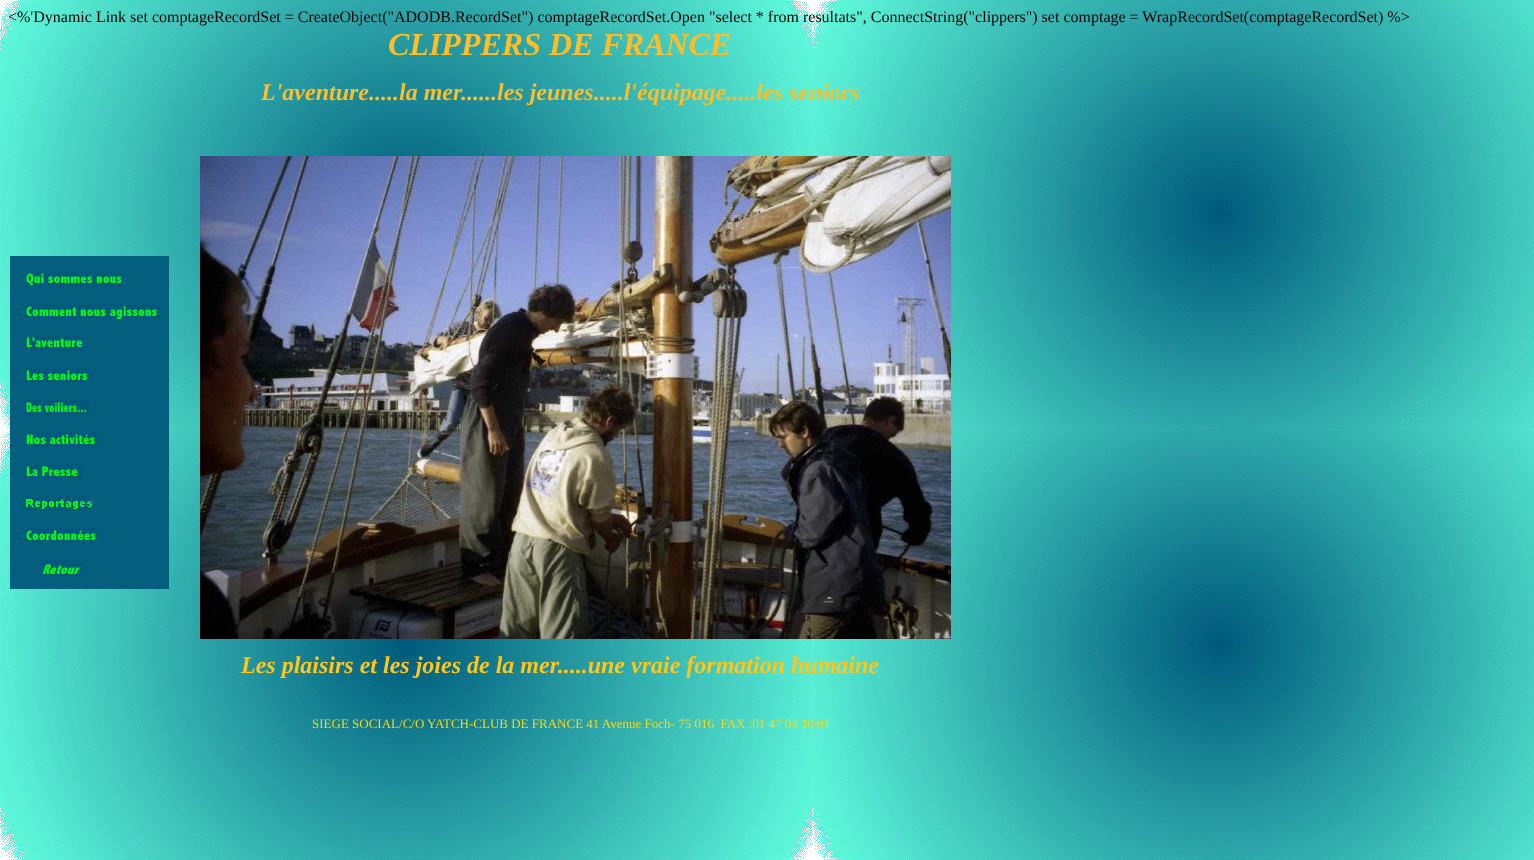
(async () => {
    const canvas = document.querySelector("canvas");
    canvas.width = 1534;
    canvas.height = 860;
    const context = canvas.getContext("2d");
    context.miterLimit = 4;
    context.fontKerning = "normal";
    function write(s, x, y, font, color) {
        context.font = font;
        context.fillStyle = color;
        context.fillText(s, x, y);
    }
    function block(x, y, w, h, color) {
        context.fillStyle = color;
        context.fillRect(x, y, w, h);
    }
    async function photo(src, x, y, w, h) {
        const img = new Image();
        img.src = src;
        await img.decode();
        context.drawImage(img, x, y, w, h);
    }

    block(0, 0, 1534, 860, "rgb(255, 255, 255)");
    await photo("media/1.png", 0, 0, 1534, 860);
    write("<%'Dynamic Link set comptageRecordSet = CreateObject(\"ADODB.RecordSet\") comptageRecordSet.Open \"select * from resultats\", ConnectString(\"clippers\") set comptage = WrapRecordSet(comptageRecordSet) %>", 8, 22, "16px Liberation Serif", "rgb(0, 0, 0)");
    write("CLIPPERS DE FRANCE", 388, 55, "italic bold 32px Liberation Serif", "rgb(255, 189, 40)");
    write("L'aventure.....la mer......les jeunes.....l'équipage.....les seniors", 261, 100, "italic bold 24px Liberation Serif", "rgb(255, 189, 40)");
    block(10, 256, 159, 333, "rgb(4, 94, 125)");
    await photo("media/2.png", 26, 272, 96, 15);
    await photo("media/3.png", 26, 304, 134, 15);
    await photo("media/4.png", 26, 336, 56, 15);
    await photo("media/5.png", 26, 368, 64, 15);
    await photo("media/6.png", 26, 400, 64, 15);
    await photo("media/7.png", 26, 432, 72, 15);
    await photo("media/8.png", 26, 464, 56, 15);
    await photo("media/9.png", 26, 496, 66, 15);
    await photo("media/10.png", 26, 528, 72, 15);
    await photo("media/11.png", 42, 560, 40, 16);
    await photo("media/12.png", 200, 156, 751, 483);
    write("Les plaisirs et les joies de la mer.....une vraie formation humaine", 241, 673, "italic bold 24px Liberation Serif", "rgb(255, 198, 28)");
    write("SIEGE SOCIAL/C/O YATCH-CLUB DE FRANCE 41 Avenue Foch- 75 016  FAX :01 47 04 10 01", 312, 728, "13px Liberation Serif", "rgb(245, 218, 29)");
})();
